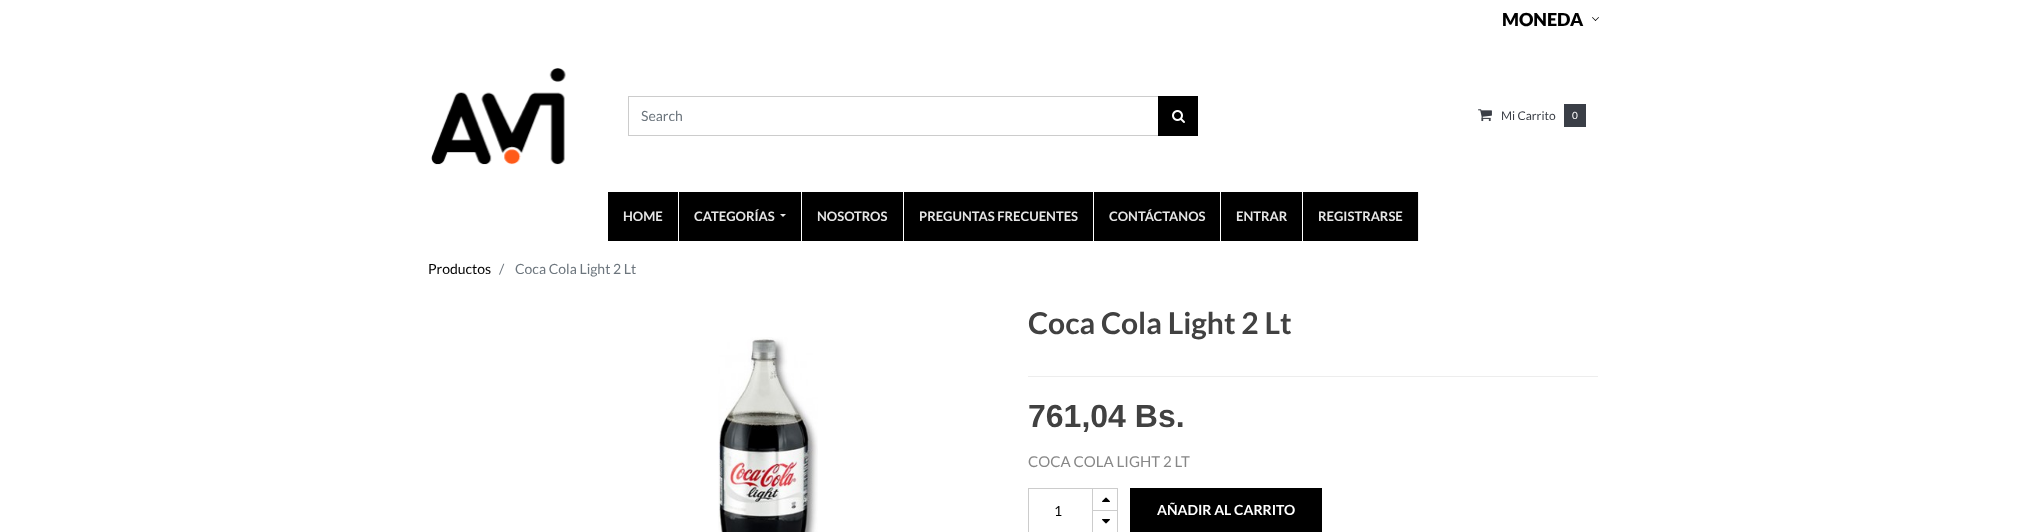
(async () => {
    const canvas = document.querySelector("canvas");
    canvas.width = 2026;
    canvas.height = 532;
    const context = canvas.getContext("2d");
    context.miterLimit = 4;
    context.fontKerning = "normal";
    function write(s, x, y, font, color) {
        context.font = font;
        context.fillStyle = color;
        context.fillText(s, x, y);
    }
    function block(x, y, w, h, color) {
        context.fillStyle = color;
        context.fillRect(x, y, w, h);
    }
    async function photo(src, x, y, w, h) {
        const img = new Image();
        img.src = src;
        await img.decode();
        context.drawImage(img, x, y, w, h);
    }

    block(0, 0, 2026, 532, "rgb(255, 255, 255)");
    write("MONEDA", 1502, 26, "900 18px Lato", "rgb(0, 0, 0)");
    context.beginPath();
    context.moveTo(1598.5, 17);
    context.lineTo(1599, 17.5);
    context.lineTo(1595.5, 21);
    context.lineTo(1595, 20.5);
    context.closePath();
    context.fill();
    context.beginPath();
    context.moveTo(1592.5, 17);
    context.lineTo(1596, 20.5);
    context.lineTo(1595.5, 21);
    context.lineTo(1592, 17.5);
    context.closePath();
    context.fill();
    await photo("media/1.png", 431, 68, 135, 97);
    context.strokeStyle = "rgb(204, 204, 204)";
    context.strokeRect(628.5, 96.5, 569, 39);
    write("Search", 641, 121, "14px Lato", "rgb(108, 117, 125)");
    block(1158, 96, 40, 40, "rgb(0, 0, 0)");
    await photo("media/2.png", 1172, 110, 13, 13);
    await photo("media/3.png", 1478, 109, 14, 13);
    write("Mi Carrito", 1501, 120, "12px Lato", "rgb(58, 62, 70)");
    block(1564, 104, 22, 23, "rgb(58, 62, 70)");
    write("0", 1572, 119, "10px Lato", "rgb(255, 255, 255)");
    block(608, 192, 70, 49, "rgb(0, 0, 0)");
    write("HOME", 623, 221, "bold 13px Lato", "rgb(230, 230, 230)");
    block(679, 192, 122, 49, "rgb(0, 0, 0)");
    write("CATEGORÍAS", 694, 221, "bold 13px Lato", "rgb(230, 230, 230)");
    context.beginPath();
    context.moveTo(780, 214);
    context.lineTo(786, 214);
    context.lineTo(783, 217);
    context.closePath();
    context.fill();
    block(802, 192, 101, 49, "rgb(0, 0, 0)");
    write("NOSOTROS", 817, 221, "bold 13px Lato", "rgb(230, 230, 230)");
    block(904, 192, 189, 49, "rgb(0, 0, 0)");
    write("PREGUNTAS FRECUENTES", 919, 221, "bold 13px Lato", "rgb(230, 230, 230)");
    block(1094, 192, 126, 49, "rgb(0, 0, 0)");
    write("CONTÁCTANOS", 1109, 221, "bold 13px Lato", "rgb(230, 230, 230)");
    block(1221, 192, 81, 49, "rgb(0, 0, 0)");
    write("ENTRAR", 1236, 221, "bold 13px Lato", "rgb(230, 230, 230)");
    block(1303, 192, 115, 49, "rgb(0, 0, 0)");
    block(1418, 192, 1, 49, "rgb(238, 238, 238)");
    write("REGISTRARSE", 1318, 221, "bold 13px Lato", "rgb(230, 230, 230)");
    write("Productos", 428, 274, "14px Lato", "rgb(0, 0, 0)");
    write("/", 499, 274, "14px Lato", "rgb(108, 117, 125)");
    write("Coca Cola Light 2 Lt", 515, 274, "14px Lato", "rgb(108, 117, 125)");
    await photo("media/4.png", 718, 337, 100, 195);
    write("Coca Cola Light 2 Lt", 1028, 334, "bold 30px Lato", "rgb(65, 65, 65)");
    block(1028, 376, 570, 1, "rgb(237, 237, 237)");
    write("761,04 Bs.", 1028, 427, "bold 32px Liberation Sans", "rgb(65, 65, 65)");
    write("COCA COLA LIGHT 2 LT", 1028, 467, "15px Lato", "rgb(135, 135, 135)");
    context.strokeRect(1028.5, 488.5, 89, 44);
    write("1", 1054, 516, "14px Lato", "rgb(0, 0, 0)");
    context.fillStyle = "rgba(0, 0, 0, 0.2)";
    context.beginPath();
    context.moveTo(1092, 532);
    context.lineTo(1092, 510);
    context.lineTo(1093, 511);
    context.lineTo(1093, 532);
    context.closePath();
    context.fill();
    block(1092, 510, 1, 1, "rgb(255, 255, 255)");
    context.fillStyle = "rgb(204, 204, 204)";
    context.beginPath();
    context.moveTo(1117, 511);
    context.lineTo(1092, 511);
    context.lineTo(1093, 510);
    context.lineTo(1117, 510);
    context.closePath();
    context.fill();
    context.fillStyle = "rgba(0, 0, 0, 0.2)";
    context.beginPath();
    context.moveTo(1092, 511);
    context.lineTo(1092, 489);
    context.lineTo(1093, 489);
    context.lineTo(1093, 510);
    context.closePath();
    context.fill();
    await photo("media/5.png", 1102, 497, 8, 5);
    await photo("media/6.png", 1102, 519, 8, 5);
    block(1130, 488, 192, 44, "rgb(0, 0, 0)");
    write("AÑADIR AL CARRITO", 1157, 515, "bold 14px Lato", "rgb(255, 255, 255)");
})();
